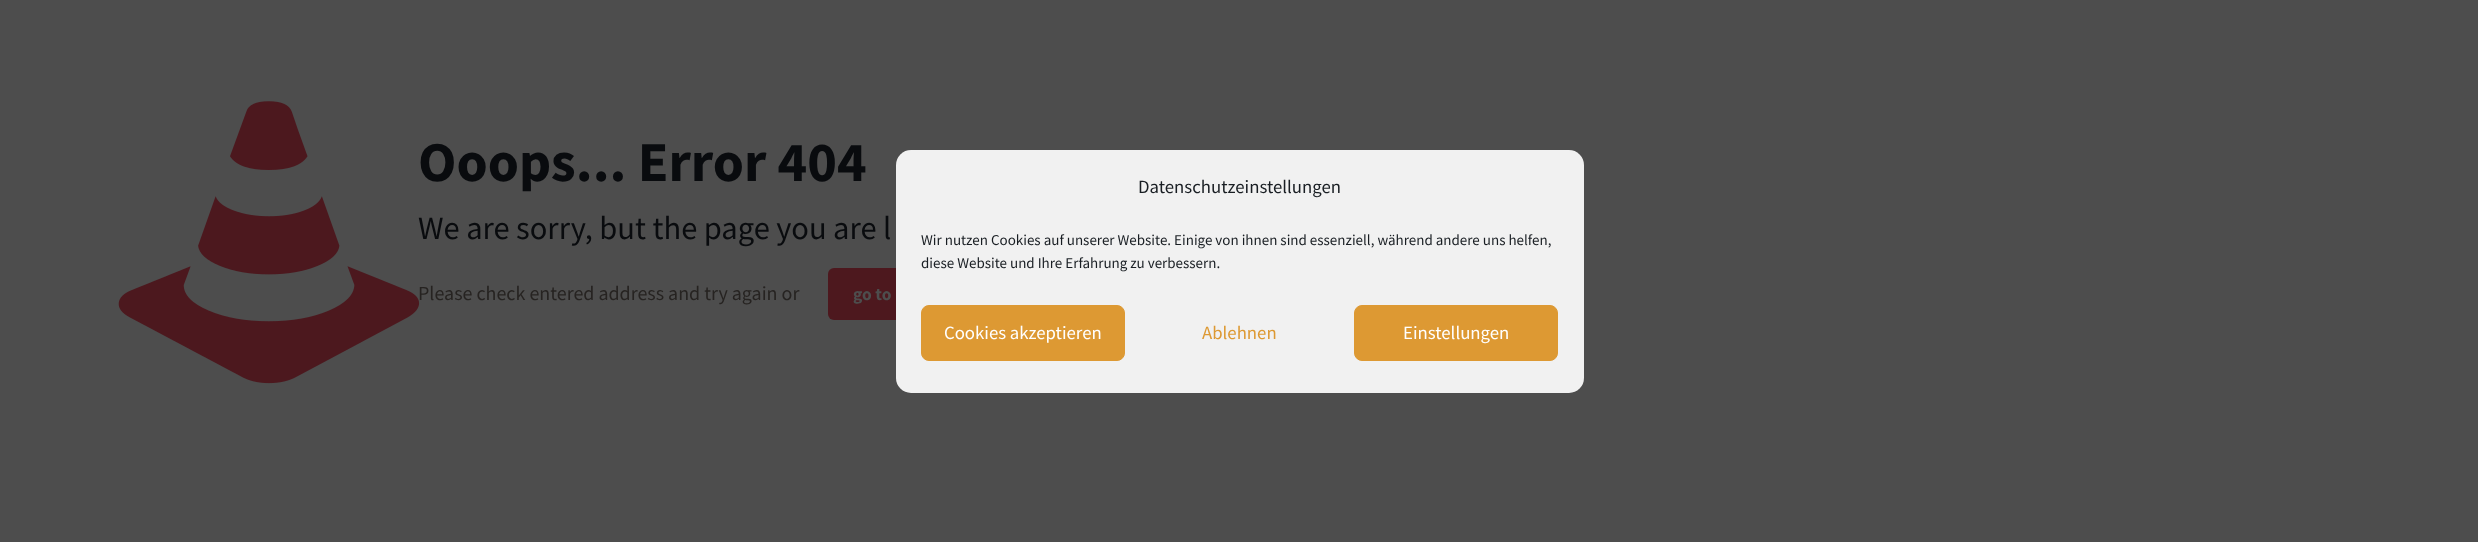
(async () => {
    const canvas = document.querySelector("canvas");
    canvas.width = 2478;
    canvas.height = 542;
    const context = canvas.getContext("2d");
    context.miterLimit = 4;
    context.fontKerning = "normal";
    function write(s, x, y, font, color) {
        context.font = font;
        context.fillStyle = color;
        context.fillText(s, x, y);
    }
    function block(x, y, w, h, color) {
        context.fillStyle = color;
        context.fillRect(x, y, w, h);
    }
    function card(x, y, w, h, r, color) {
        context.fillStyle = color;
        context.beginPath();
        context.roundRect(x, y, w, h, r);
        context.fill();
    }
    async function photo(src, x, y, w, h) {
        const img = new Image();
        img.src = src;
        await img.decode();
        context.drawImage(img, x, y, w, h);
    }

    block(0, 0, 2478, 542, "rgb(77, 77, 77)");
    await photo("media/1.png", 118, 101, 302, 283);
    write("Ooops... Error 404", 418, 181, "bold 56.25px Source Sans Pro", "rgb(9, 11, 14)");
    write("We are sorry, but the page you are l", 418, 239, "32.5px Source Sans Pro", "rgb(9, 11, 14)");
    write("Please check entered address and try again or", 418, 300, "20px Source Sans Pro", "rgb(38, 35, 33)");
    card(828, 268, 173, 52, 6, "rgb(77, 24, 30)");
    write("go to", 853, 300, "bold 17.5px Source Sans Pro", "rgb(77, 77, 77)");
    card(896, 150, 688, 243, 15, "rgb(241, 241, 241)");
    write("Datenschutzeinstellungen", 1138, 193, "18.75px Source Sans Pro", "rgb(25, 30, 35)");
    write("Wir nutzen Cookies auf unserer Website. Einige von ihnen sind essenziell, während andere uns helfen,", 921, 245, "15px Source Sans Pro", "rgb(25, 30, 35)");
    write("diese Website und Ihre Erfahrung zu verbessern.", 921, 268, "15px Source Sans Pro", "rgb(25, 30, 35)");
    context.fillStyle = "rgb(221, 153, 51)";
    context.beginPath();
    context.roundRect(921.5, 305.5, 203, 55, 7.5);
    context.fill();
    context.strokeStyle = "rgb(221, 153, 51)";
    context.stroke();
    write("Cookies akzeptieren", 944, 339, "18.75px Source Sans Pro", "rgb(255, 255, 255)");
    write("Ablehnen", 1202, 339, "18.75px Source Sans Pro", "rgb(221, 153, 51)");
    context.beginPath();
    context.roundRect(1354.5, 305.5, 203, 55, 7.5);
    context.fill();
    context.stroke();
    write("Einstellungen", 1403, 339, "18.75px Source Sans Pro", "rgb(255, 255, 255)");
})();
